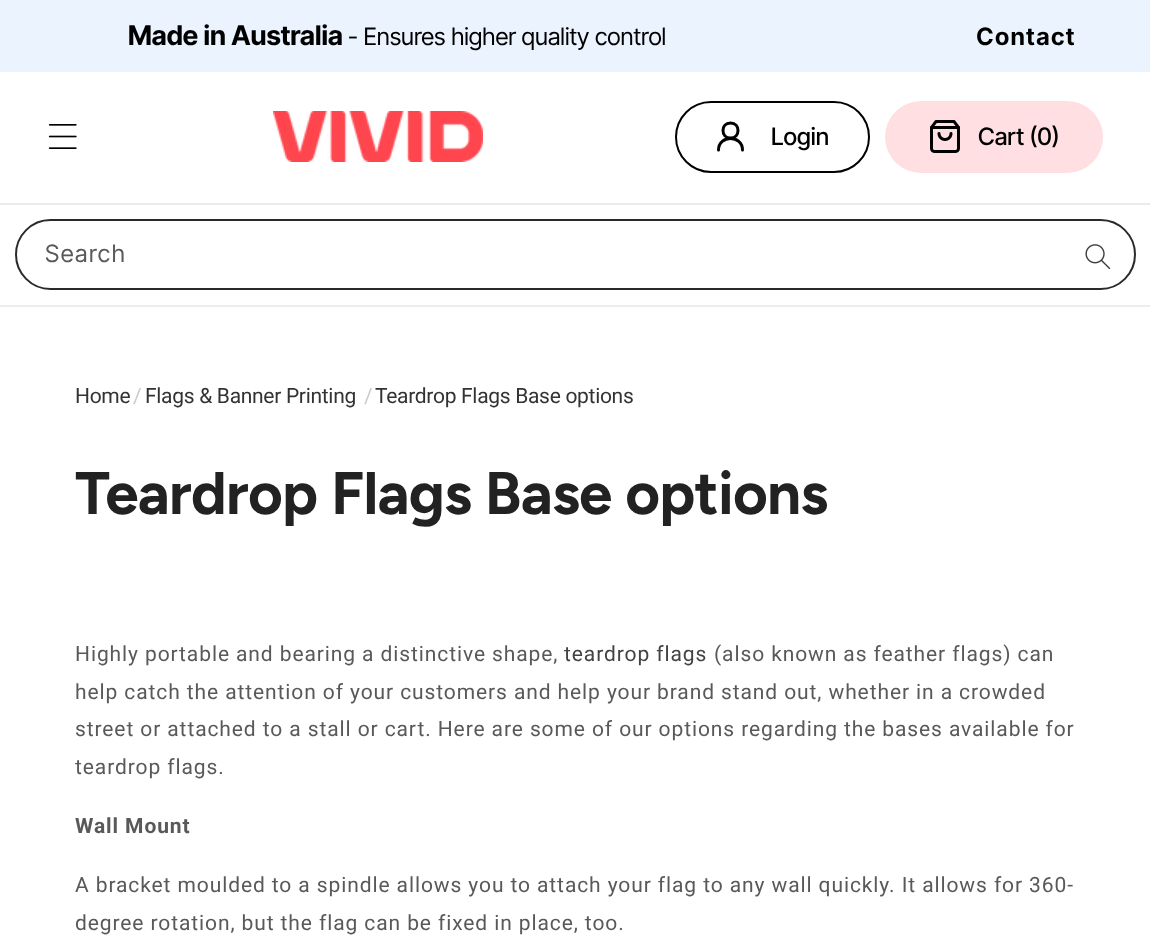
(async () => {
    const canvas = document.querySelector("canvas");
    canvas.width = 1150;
    canvas.height = 936;
    const context = canvas.getContext("2d");
    context.miterLimit = 4;
    context.fontKerning = "normal";
    function write(s, x, y, font, color) {
        context.font = font;
        context.fillStyle = color;
        context.fillText(s, x, y);
    }
    function block(x, y, w, h, color) {
        context.fillStyle = color;
        context.fillRect(x, y, w, h);
    }
    function card(x, y, w, h, r, color) {
        context.fillStyle = color;
        context.beginPath();
        context.roundRect(x, y, w, h, r);
        context.fill();
    }
    async function photo(src, x, y, w, h) {
        const img = new Image();
        img.src = src;
        await img.decode();
        context.drawImage(img, x, y, w, h);
    }

    block(0, 0, 1150, 936, "rgb(255, 255, 255)");
    block(0, 0, 1150, 72, "rgb(235, 243, 255)");
    write("Made in Australia", 128, 45, "bold 27px Inter Tight", "rgb(0, 0, 0)");
    write("- Ensures higher quality control", 348, 45, "24px Inter Tight", "rgb(0, 0, 0)");
    context.letterSpacing = "0.9px";
    write("Contact", 976, 45, "bold 24px Inter", "rgb(0, 0, 0)");
    block(0, 305, 1150, 2, "rgb(237, 237, 237)");
    block(0, 203, 1150, 2, "rgb(235, 235, 235)");
    await photo("media/1.png", 48, 124, 29, 25);
    await photo("media/2.png", 273, 111, 210, 51);
    context.beginPath();
    context.roundRect(676, 102, 193, 70, 35);
    context.strokeStyle = "rgb(0, 0, 0)";
    context.lineWidth = 2;
    context.stroke();
    context.beginPath();
    context.moveTo(730.5, 138);
    context.bezierCurveTo(740.5, 138, 740.5, 123, 730.5, 123);
    context.bezierCurveTo(720.5, 123, 720.5, 138, 730.5, 138);
    context.closePath();
    context.moveTo(742.5, 150);
    context.bezierCurveTo(742.5, 134.5, 718.5, 134.5, 718.5, 150);
    context.lineWidth = 3;
    context.lineCap = "round";
    context.lineJoin = "round";
    context.stroke();
    context.letterSpacing = "0px";
    write("Login", 771, 145, "500 24px Inter Tight", "rgb(0, 0, 0)");
    card(885, 101, 218, 72, 36, "rgb(255, 223, 225)");
    await photo("media/3.png", 930, 120, 30, 33);
    write("Cart (0)", 978, 145, "500 24px Inter Tight", "rgb(0, 0, 0)");
    context.beginPath();
    context.roundRect(16, 220, 1119, 69, 34.5);
    context.strokeStyle = "rgb(42, 42, 42)";
    context.lineWidth = 2;
    context.lineJoin = "miter";
    context.stroke();
    context.letterSpacing = "1.5px";
    write("Search", 45, 262, "24px Inter Tight", "rgb(89, 89, 89)");
    await photo("media/4.png", 1085, 244, 26, 26);
    context.letterSpacing = "-0.3px";
    write("Home", 75, 403, "21px Roboto", "rgb(51, 51, 51)");
    write("/", 133, 403, "21px Roboto", "rgb(204, 204, 204)");
    write("Flags & Banner Printing", 145, 403, "21px Roboto", "rgb(51, 51, 51)");
    write("/", 364, 403, "21px Roboto", "rgb(204, 204, 204)");
    write("Teardrop Flags Base options", 375, 403, "21px Roboto", "rgb(51, 51, 51)");
    context.letterSpacing = "-0.75px";
    write("Teardrop Flags Base options", 75, 514, "bold 60px Figtree", "rgb(34, 34, 34)");
    context.letterSpacing = "0.9px";
    write("Highly portable and bearing a distinctive shape,", 75, 661, "21px Roboto", "rgb(89, 89, 89)");
    write("teardrop flags", 564, 661, "21px Roboto", "rgb(67, 67, 67)");
    write("(also known as feather flags) can", 714, 661, "21px Roboto", "rgb(89, 89, 89)");
    write("help catch the attention of your customers and help your brand stand out, whether in a crowded", 75, 699, "21px Roboto", "rgb(89, 89, 89)");
    write("street or attached to a stall or cart. Here are some of our options regarding the bases available for", 75, 736, "21px Roboto", "rgb(89, 89, 89)");
    write("teardrop flags.", 75, 774, "21px Roboto", "rgb(89, 89, 89)");
    write("Wall Mount", 75, 833, "bold 21px Roboto", "rgb(89, 89, 89)");
    write("A bracket moulded to a spindle allows you to attach your flag to any wall quickly. It allows for 360-", 75, 892, "21px Roboto", "rgb(89, 89, 89)");
    write("degree rotation, but the flag can be fixed in place, too.", 75, 930, "21px Roboto", "rgb(89, 89, 89)");
})();
